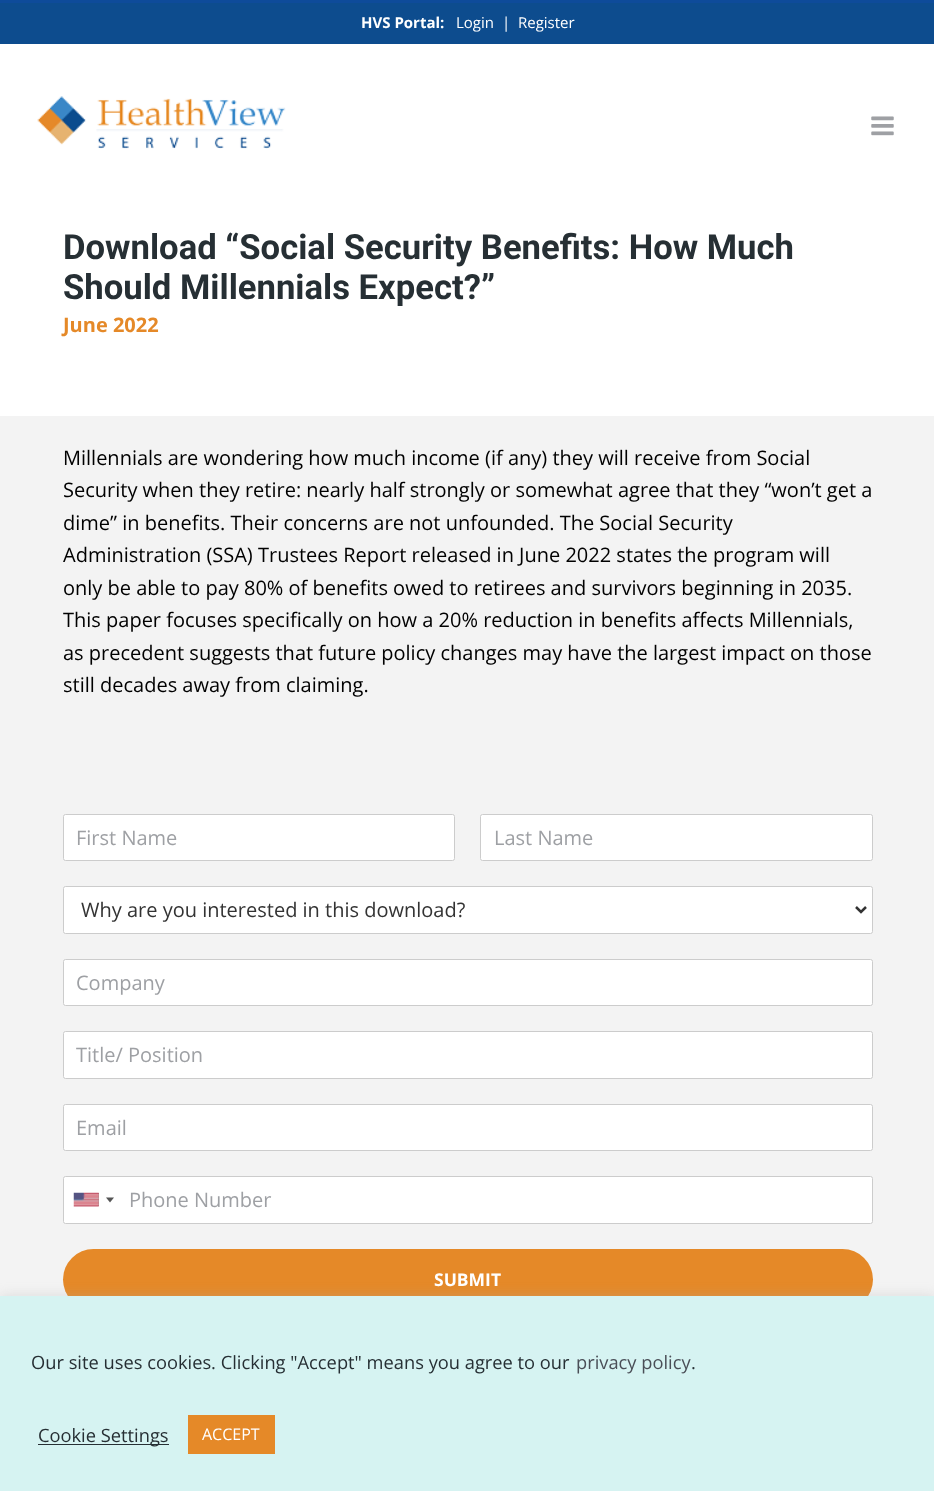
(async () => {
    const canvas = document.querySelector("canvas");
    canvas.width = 934;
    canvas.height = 1491;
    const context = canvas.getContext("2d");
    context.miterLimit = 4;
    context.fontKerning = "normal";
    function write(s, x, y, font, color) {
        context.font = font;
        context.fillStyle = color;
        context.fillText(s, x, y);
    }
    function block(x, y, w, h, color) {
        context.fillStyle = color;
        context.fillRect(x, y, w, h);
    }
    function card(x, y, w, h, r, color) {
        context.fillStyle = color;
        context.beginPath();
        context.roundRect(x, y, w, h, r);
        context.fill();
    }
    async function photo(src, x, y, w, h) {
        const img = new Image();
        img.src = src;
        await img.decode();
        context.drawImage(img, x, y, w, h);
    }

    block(0, 0, 934, 1491, "rgb(255, 255, 255)");
    block(0, 3, 934, 41, "rgb(13, 76, 142)");
    block(0, 0, 934, 3, "rgb(14, 75, 154)");
    write("HVS Portal:", 361, 28, "bold 15px Open Sans", "rgb(255, 255, 255)");
    write("Login", 456, 28, "15px Open Sans", "rgb(255, 255, 255)");
    write("|", 502, 28, "15px Open Sans", "rgb(255, 255, 255)");
    write("Register", 518, 28, "15px Open Sans", "rgb(255, 255, 255)");
    await photo("media/1.png", 37, 96, 249, 53);
    await photo("media/2.png", 871, 116, 23, 20);
    write("Download “Social Security Benefits: How Much", 63, 259, "bold 34.65px Roboto", "rgb(38, 47, 52)");
    write("Should Millennials Expect?”", 63, 299, "bold 34.65px Roboto", "rgb(38, 47, 52)");
    write("June 2022", 63, 332, "bold 20px Open Sans", "rgb(229, 137, 40)");
    block(0, 416, 934, 880, "rgb(243, 243, 243)");
    write("Millennials are wondering how much income (if any) they will receive from Social", 63, 465, "20px Open Sans", "rgb(0, 0, 0)");
    write("Security when they retire: nearly half strongly or somewhat agree that they “won’t get a", 63, 497, "20px Open Sans", "rgb(0, 0, 0)");
    write("dime” in benefits. Their concerns are not unfounded. The Social Security", 63, 530, "20px Open Sans", "rgb(0, 0, 0)");
    write("Administration (SSA) Trustees Report released in June 2022 states the program will", 63, 562, "20px Open Sans", "rgb(0, 0, 0)");
    write("only be able to pay 80% of benefits owed to retirees and survivors beginning in 2035.", 63, 595, "20px Open Sans", "rgb(0, 0, 0)");
    write("This paper focuses specifically on how a 20% reduction in benefits affects Millennials,", 63, 627, "20px Open Sans", "rgb(0, 0, 0)");
    write("as precedent suggests that future policy changes may have the largest impact on those", 63, 660, "20px Open Sans", "rgb(0, 0, 0)");
    write("still decades away from claiming.", 63, 692, "20px Open Sans", "rgb(0, 0, 0)");
    context.fillStyle = "rgb(255, 255, 255)";
    context.beginPath();
    context.roundRect(63.5, 814.5, 391, 46, 2);
    context.fill();
    context.strokeStyle = "rgb(204, 204, 204)";
    context.stroke();
    write("First Name", 76, 845, "20px Open Sans", "rgb(158, 160, 164)");
    context.fillStyle = "rgb(255, 255, 255)";
    context.beginPath();
    context.roundRect(480.5, 814.5, 392, 46, 2);
    context.fill();
    context.stroke();
    write("Last Name", 494, 845, "20px Open Sans", "rgb(158, 160, 164)");
    context.fillStyle = "rgb(255, 255, 255)";
    context.beginPath();
    context.roundRect(63.5, 886.5, 809, 47, 2);
    context.fill();
    context.stroke();
    context.beginPath();
    context.moveTo(856, 907);
    context.lineTo(861, 912);
    context.lineTo(866, 907);
    context.strokeStyle = "rgb(51, 51, 51)";
    context.lineWidth = 2.5;
    context.stroke();
    write("Why are you interested in this download?", 81, 917, "20px Open Sans", "rgb(51, 51, 51)");
    context.fillStyle = "rgb(255, 255, 255)";
    context.beginPath();
    context.roundRect(63.5, 959.5, 809, 46, 2);
    context.fill();
    context.strokeStyle = "rgb(204, 204, 204)";
    context.lineWidth = 1;
    context.stroke();
    write("Company", 76, 990, "20px Open Sans", "rgb(158, 160, 164)");
    context.fillStyle = "rgb(255, 255, 255)";
    context.beginPath();
    context.roundRect(63.5, 1031.5, 809, 47, 2);
    context.fill();
    context.stroke();
    write("Title/ Position", 76, 1062, "20px Open Sans", "rgb(158, 160, 164)");
    context.fillStyle = "rgb(255, 255, 255)";
    context.beginPath();
    context.roundRect(63.5, 1104.5, 809, 46, 2);
    context.fill();
    context.stroke();
    write("Email", 76, 1135, "20px Open Sans", "rgb(158, 160, 164)");
    context.fillStyle = "rgb(255, 255, 255)";
    context.beginPath();
    context.roundRect(63.5, 1176.5, 809, 47, 2);
    context.fill();
    context.stroke();
    context.fillStyle = "rgb(136, 136, 136)";
    context.filter = "blur(0.5px)";
    context.beginPath();
    context.rect(74, 1193, 25, 13);
    context.fill();
    context.filter = "none";
    await photo("media/3.png", 73, 1192, 26, 15);
    context.fillStyle = "rgb(85, 85, 85)";
    context.beginPath();
    context.moveTo(106, 1197.5);
    context.lineTo(114, 1197.5);
    context.lineTo(110, 1202.5);
    context.closePath();
    context.fill();
    write("Phone Number", 129, 1207, "20px Open Sans", "rgb(158, 160, 164)");
    card(63, 1249, 810, 61, 30.5, "rgb(229, 137, 40)");
    write("SUBMIT", 434, 1286, "bold 17.5px Open Sans", "rgb(255, 255, 255)");
    context.fillStyle = "rgba(172, 171, 171, 0.3)";
    context.filter = "blur(6px)";
    context.beginPath();
    context.rect(0, 1295, 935, 195);
    context.fill();
    context.filter = "none";
    block(0, 1296, 934, 195, "rgb(214, 243, 242)");
    write("Our site uses cookies. Clicking \"Accept\" means you agree to our", 31, 1369, "18.3px Open Sans", "rgb(38, 47, 52)");
    write("privacy policy", 576, 1369, "18.3px Open Sans", "rgb(74, 78, 87)");
    write(".", 691, 1369, "18.3px Open Sans", "rgb(38, 47, 52)");
    block(38, 1444, 131, 1, "rgb(38, 47, 52)");
    write("Cookie Settings", 38, 1442, "18.3px Open Sans", "rgb(38, 47, 52)");
    block(188, 1415, 87, 39, "rgb(229, 137, 40)");
    write("ACCEPT", 202, 1440, "16px Open Sans", "rgb(255, 255, 255)");
})();
